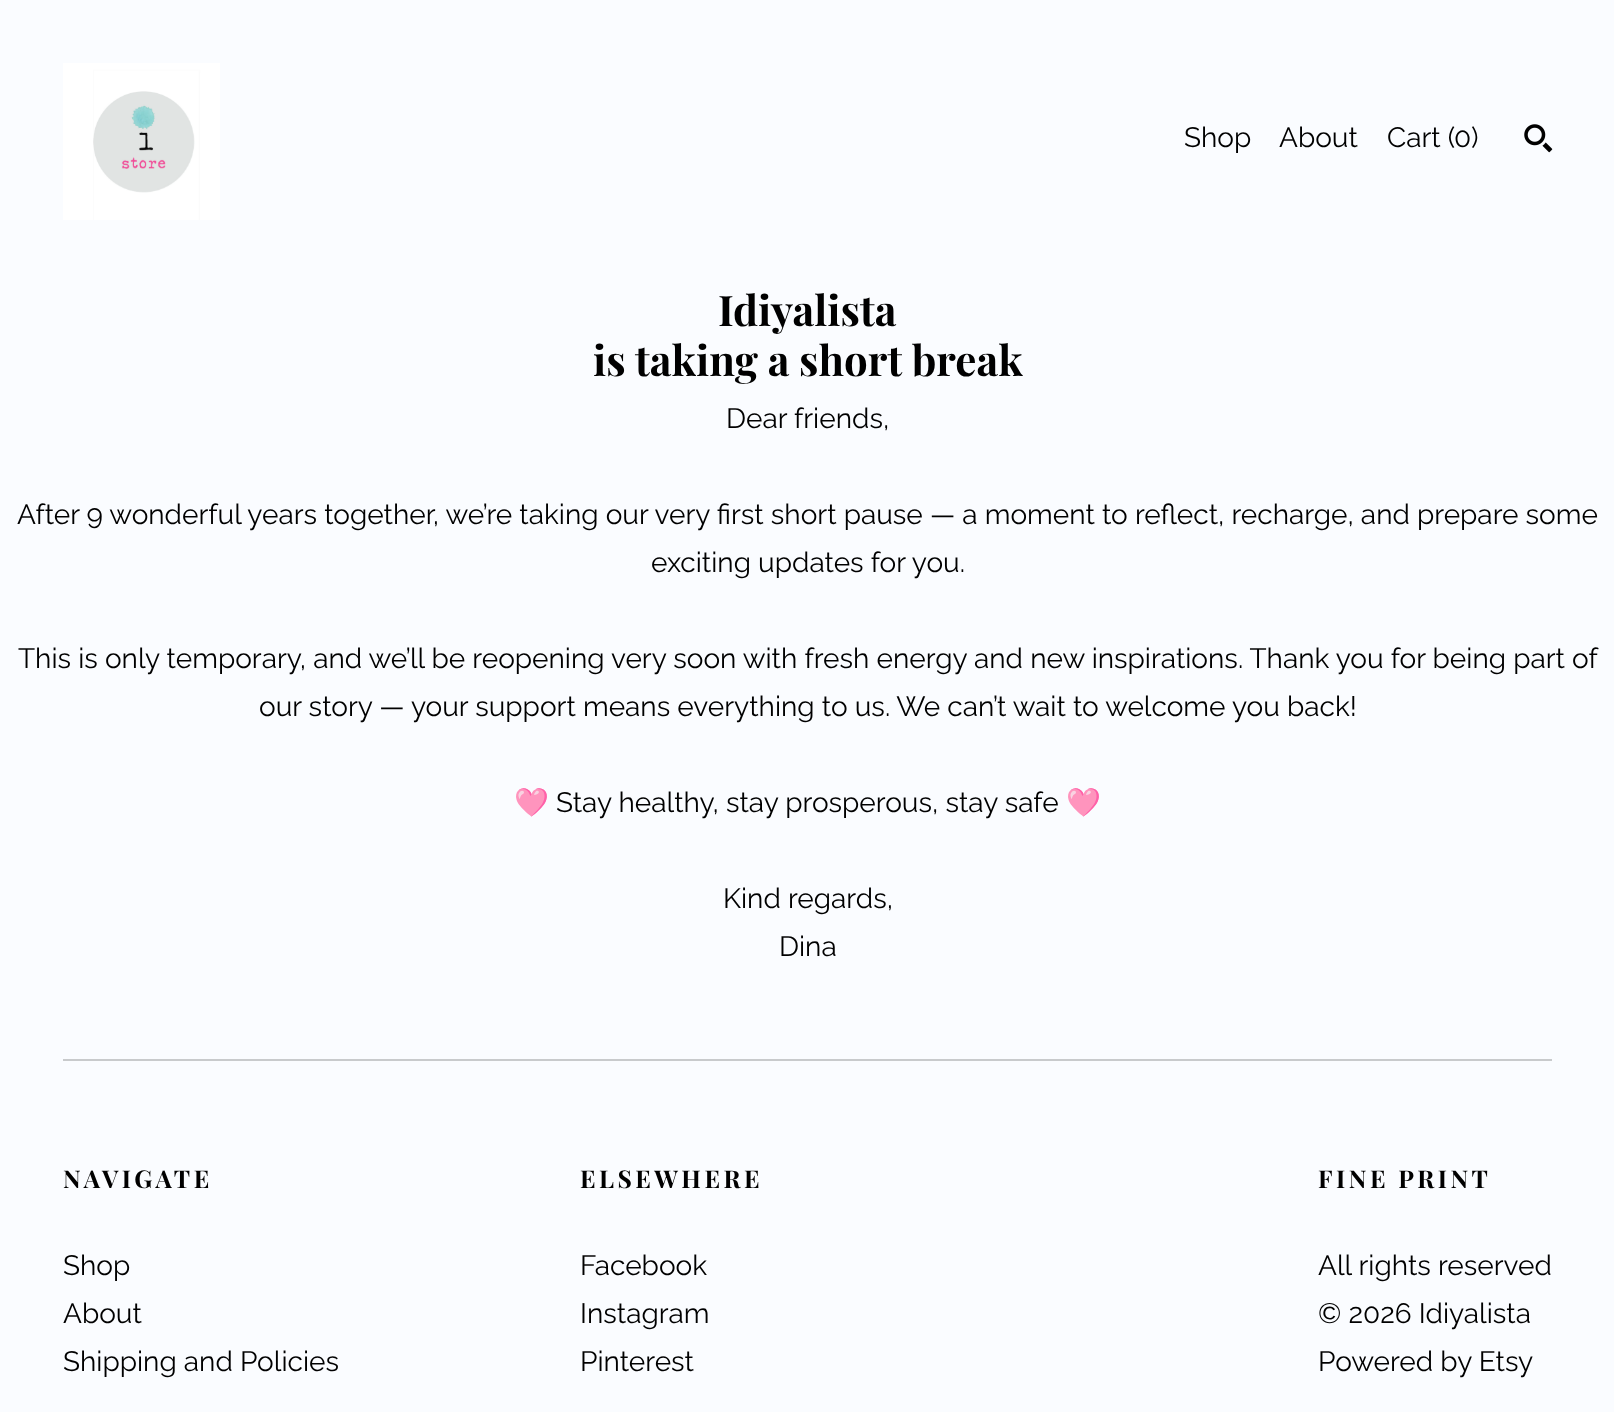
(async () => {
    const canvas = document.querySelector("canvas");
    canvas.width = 1614;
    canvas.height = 1412;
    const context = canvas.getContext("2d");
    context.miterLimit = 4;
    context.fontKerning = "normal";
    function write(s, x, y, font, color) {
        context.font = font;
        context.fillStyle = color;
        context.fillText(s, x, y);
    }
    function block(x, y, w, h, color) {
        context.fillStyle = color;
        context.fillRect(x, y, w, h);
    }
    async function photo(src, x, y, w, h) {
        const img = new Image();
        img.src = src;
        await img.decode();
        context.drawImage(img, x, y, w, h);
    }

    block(0, 0, 1614, 1412, "rgb(250, 252, 255)");
    await photo("media/1.png", 63, 63, 157, 157);
    write("Shop", 1184, 147, "28px Raleway", "rgb(0, 0, 0)");
    write("About", 1279, 147, "28px Raleway", "rgb(0, 0, 0)");
    write("Cart (", 1387, 147, "28px Raleway", "rgb(0, 0, 0)");
    write("0", 1454, 147, "28px Raleway", "rgb(0, 0, 0)");
    write(")", 1471, 147, "28px Raleway", "rgb(0, 0, 0)");
    await photo("media/2.png", 1524, 124, 29, 29);
    write("Idiyalista", 718, 326, "bold 42px Playfair Display", "rgb(0, 0, 0)");
    write("is taking a short break", 593, 376, "bold 42px Playfair Display", "rgb(0, 0, 0)");
    write("Dear friends,", 726, 428, "28px Raleway", "rgb(0, 0, 0)");
    write("After 9 wonderful years together, we’re taking our very first short pause — a moment to reflect, recharge, and prepare some", 17, 524, "28px Raleway", "rgb(0, 0, 0)");
    write("exciting updates for you.", 651, 572, "28px Raleway", "rgb(0, 0, 0)");
    write("This is only temporary, and we’ll be reopening very soon with fresh energy and new inspirations. Thank you for being part of", 18, 668, "28px Raleway", "rgb(0, 0, 0)");
    write("our story — your support means everything to us. We can’t wait to welcome you back!", 259, 716, "28px Raleway", "rgb(0, 0, 0)");
    write("🩷", 514, 812, "28px Noto Color Emoji", "rgb(0, 0, 0)");
    write("Stay healthy, stay prosperous, stay safe", 556, 812, "28px Raleway", "rgb(0, 0, 0)");
    write("🩷", 1066, 812, "28px Noto Color Emoji", "rgb(0, 0, 0)");
    write("Kind regards,", 723, 908, "28px Raleway", "rgb(0, 0, 0)");
    write("Dina", 779, 956, "28px Raleway", "rgb(0, 0, 0)");
    block(63, 1059, 1489, 2, "rgb(200, 202, 204)");
    context.letterSpacing = "3.5px";
    write("NAVIGATE", 63, 1188, "bold 24.5px Playfair Display", "rgb(0, 0, 0)");
    context.letterSpacing = "0px";
    write("Shop", 63, 1275, "28px Raleway", "rgb(0, 0, 0)");
    write("About", 63, 1323, "28px Raleway", "rgb(0, 0, 0)");
    write("Shipping and Policies", 63, 1371, "28px Raleway", "rgb(0, 0, 0)");
    context.letterSpacing = "3.5px";
    write("ELSEWHERE", 580, 1188, "bold 24.5px Playfair Display", "rgb(0, 0, 0)");
    context.letterSpacing = "0px";
    write("Facebook", 580, 1275, "28px Raleway", "rgb(0, 0, 0)");
    write("Instagram", 580, 1323, "28px Raleway", "rgb(0, 0, 0)");
    write("Pinterest", 580, 1371, "28px Raleway", "rgb(0, 0, 0)");
    context.letterSpacing = "3.5px";
    write("FINE PRINT", 1318, 1188, "bold 24.5px Playfair Display", "rgb(0, 0, 0)");
    context.letterSpacing = "0px";
    write("All rights reserved", 1318, 1275, "28px Raleway", "rgb(0, 0, 0)");
    write("© 2026 Idiyalista", 1318, 1323, "28px Raleway", "rgb(0, 0, 0)");
    write("Powered by Etsy", 1318, 1371, "28px Raleway", "rgb(0, 0, 0)");
})();
